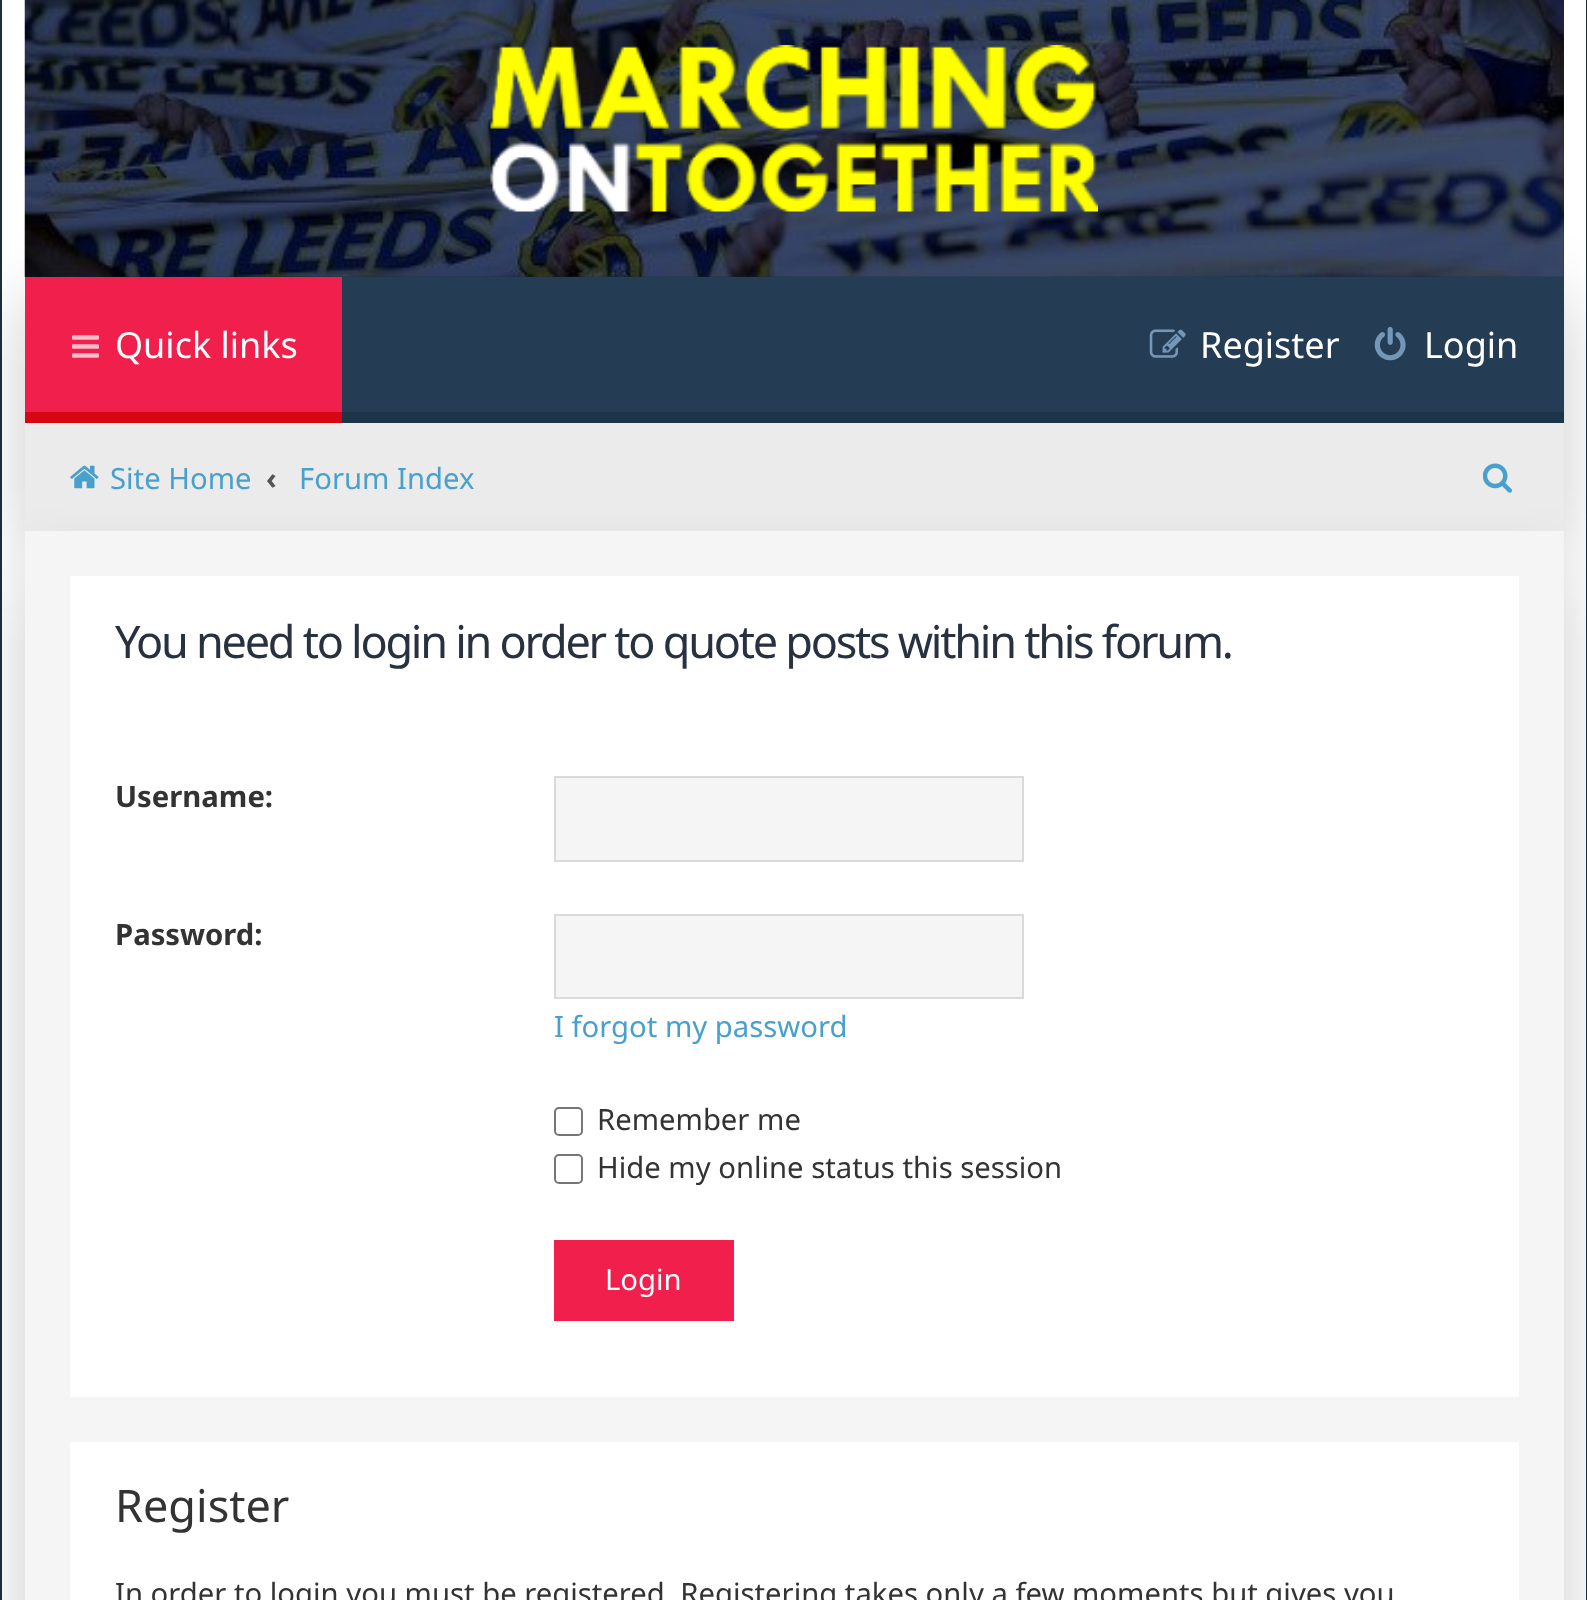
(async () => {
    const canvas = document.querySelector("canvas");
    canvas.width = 1587;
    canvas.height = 1600;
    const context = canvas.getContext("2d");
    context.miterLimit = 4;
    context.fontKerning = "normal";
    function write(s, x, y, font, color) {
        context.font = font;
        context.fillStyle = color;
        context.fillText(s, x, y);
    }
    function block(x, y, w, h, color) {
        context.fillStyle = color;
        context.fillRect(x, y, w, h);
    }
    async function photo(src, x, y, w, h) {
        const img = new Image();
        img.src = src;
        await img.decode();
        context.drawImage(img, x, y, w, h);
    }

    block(0, 0, 1587, 1600, "rgb(255, 255, 255)");
    block(1586, 0, 1, 1600, "rgb(30, 46, 61)");
    block(0, 0, 2, 1600, "rgb(30, 46, 61)");
    block(25, 0, 1539, 277, "rgb(30, 46, 61)");
    await photo("media/1.png", 24, 0, 1540, 277);
    context.fillStyle = "rgba(0, 0, 0, 0.2)";
    context.filter = "blur(34px)";
    context.beginPath();
    context.rect(25, 299, 1539, 255);
    context.fill();
    context.filter = "none";
    await photo("media/2.png", 490, 45, 608, 167);
    block(342, 277, 1222, 135, "rgb(36, 61, 84)");
    block(342, 412, 1222, 11, "rgb(30, 52, 73)");
    block(25, 277, 317, 135, "rgb(240, 31, 75)");
    block(25, 412, 317, 11, "rgb(215, 6, 21)");
    await photo("media/3.png", 72, 335, 27, 23);
    write("Quick links", 115, 358, "36px Noto Sans", "rgb(255, 255, 255)");
    await photo("media/4.png", 1149, 329, 37, 29);
    write("Register", 1200, 358, "36px Noto Sans", "rgb(255, 255, 255)");
    await photo("media/5.png", 1374, 327, 32, 34);
    write("Login", 1424, 358, "36px Noto Sans", "rgb(255, 255, 255)");
    block(25, 423, 1539, 108, "rgb(235, 235, 235)");
    context.fillStyle = "rgba(0, 0, 0, 0.2)";
    context.filter = "blur(34px)";
    context.beginPath();
    context.rect(25, 576, 1539, 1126);
    context.fill();
    context.filter = "none";
    await photo("media/6.png", 70, 465, 29, 24);
    write("Site Home", 110, 489, "29.25px Noto Sans", "rgb(73, 160, 204)");
    write("‹", 266, 489, "bold 29.25px Noto Sans", "rgb(85, 85, 85)");
    write("Forum Index", 299, 489, "29.25px Noto Sans", "rgb(73, 160, 204)");
    await photo("media/7.png", 1483, 463, 29, 30);
    block(25, 531, 1539, 1069, "rgb(245, 245, 245)");
    block(70, 576, 1449, 821, "rgb(255, 255, 255)");
    context.letterSpacing = "-2.25px";
    write("You need to login in order to quote posts within this forum.", 115, 658, "45px Noto Sans", "rgb(40, 49, 63)");
    context.letterSpacing = "0px";
    write("Username:", 115, 807, "bold 29.25px Noto Sans", "rgb(51, 51, 51)");
    context.fillStyle = "rgb(245, 245, 245)";
    context.beginPath();
    context.rect(555, 777, 468, 84);
    context.fill();
    context.strokeStyle = "rgb(218, 218, 218)";
    context.lineWidth = 2;
    context.stroke();
    write("Password:", 115, 945, "bold 29.25px Noto Sans", "rgb(51, 51, 51)");
    context.fillStyle = "rgb(245, 245, 245)";
    context.beginPath();
    context.rect(555, 915, 468, 83);
    context.fill();
    context.stroke();
    write("I forgot my password", 554, 1037, "29.25px Noto Sans", "rgb(73, 160, 204)");
    context.beginPath();
    context.roundRect(555, 1108, 27, 27, 4);
    context.strokeStyle = "rgb(118, 118, 118)";
    context.stroke();
    write("Remember me", 597, 1130, "29.25px Noto Sans", "rgb(51, 51, 51)");
    context.beginPath();
    context.roundRect(555, 1155, 27, 28, 4);
    context.stroke();
    write("Hide my online status this session", 597, 1178, "29.25px Noto Sans", "rgb(51, 51, 51)");
    block(554, 1240, 180, 81, "rgb(240, 31, 75)");
    write("Login", 605, 1290, "29.25px Noto Sans", "rgb(255, 255, 255)");
    block(70, 1442, 1449, 158, "rgb(255, 255, 255)");
    write("Register", 115, 1522, "45px Noto Sans", "rgb(51, 51, 51)");
    write("In order to login you must be registered. Registering takes only a few moments but gives you", 115, 1604, "29.25px Noto Sans", "rgb(51, 51, 51)");
})();
